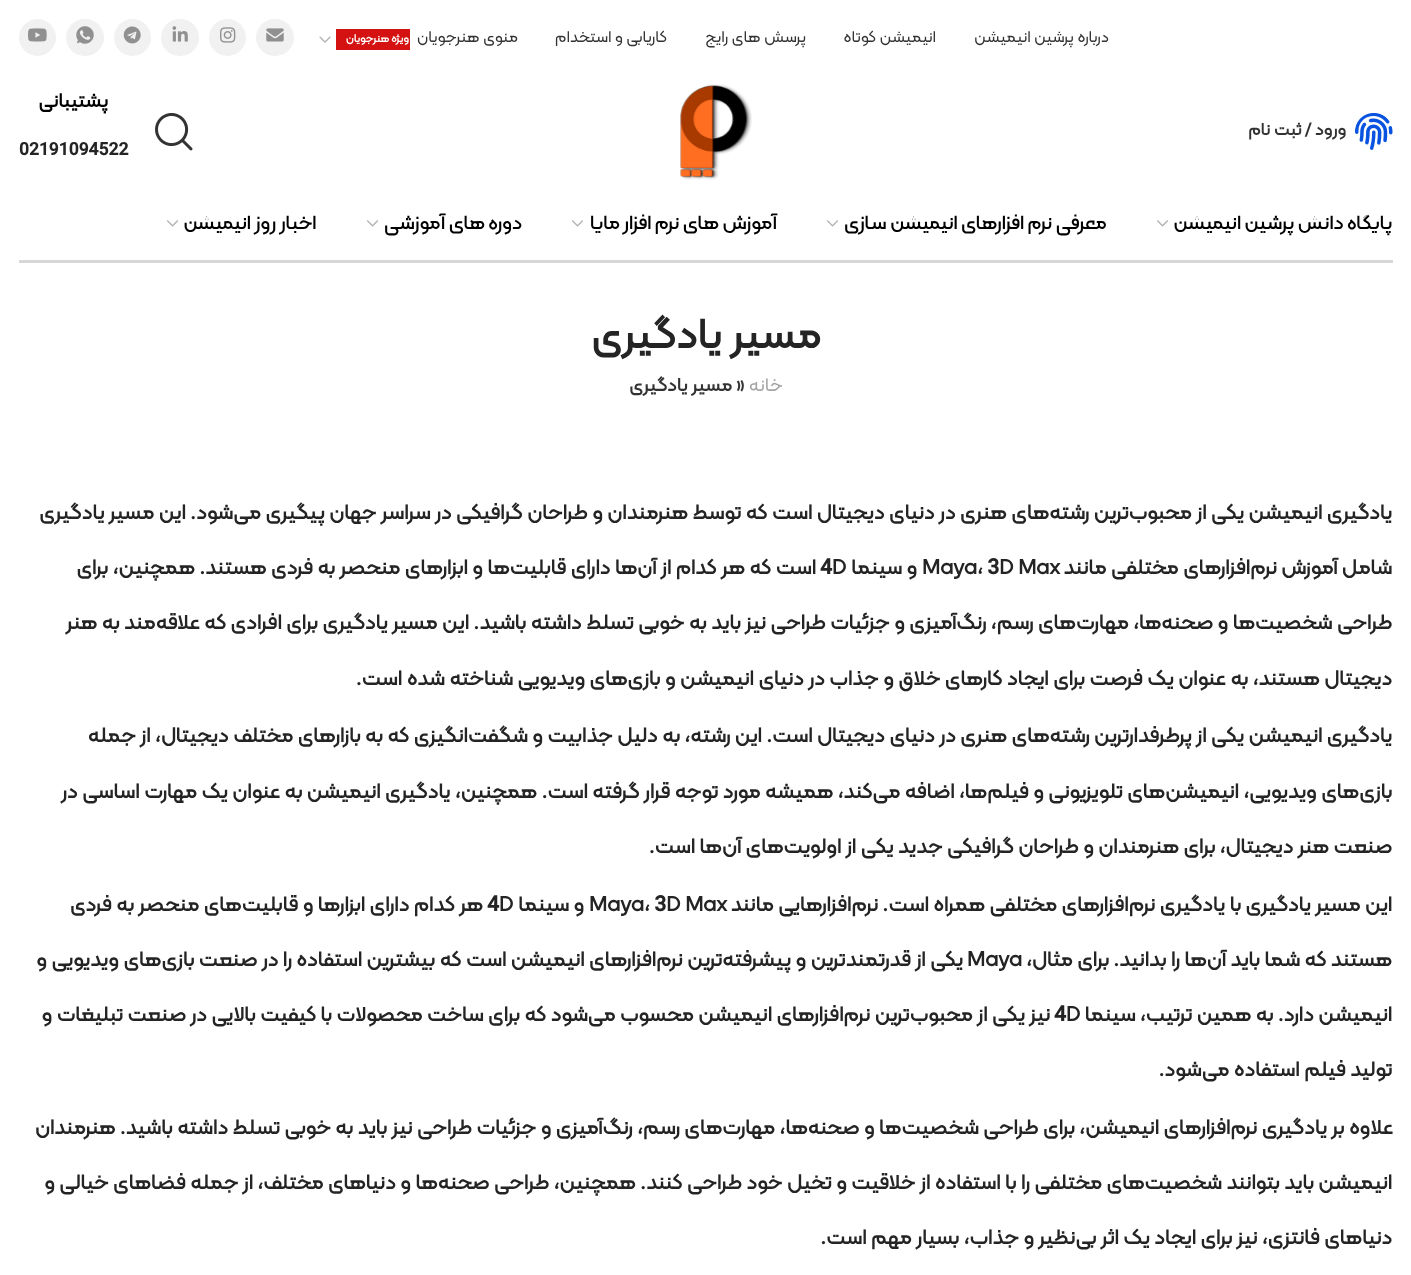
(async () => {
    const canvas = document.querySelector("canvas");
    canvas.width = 1411;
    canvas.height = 1275;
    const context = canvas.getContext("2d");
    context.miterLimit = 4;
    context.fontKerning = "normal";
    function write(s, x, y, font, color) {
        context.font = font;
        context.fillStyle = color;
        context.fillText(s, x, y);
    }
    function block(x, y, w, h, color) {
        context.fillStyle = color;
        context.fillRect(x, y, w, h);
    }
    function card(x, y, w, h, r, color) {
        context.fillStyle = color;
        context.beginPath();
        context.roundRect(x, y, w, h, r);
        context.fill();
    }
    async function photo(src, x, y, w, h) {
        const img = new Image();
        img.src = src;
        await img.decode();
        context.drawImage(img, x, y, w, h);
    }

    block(0, 0, 1411, 1275, "rgb(255, 255, 255)");
    context.direction = "rtl";
    write("درباره پرشین انیمیشن", 1109, 42, "16.25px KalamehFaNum", "rgb(51, 51, 51)");
    write("انیمیشن کوتاه", 936, 42, "16.25px KalamehFaNum", "rgb(51, 51, 51)");
    write("پرسش های رایج", 806, 42, "16.25px KalamehFaNum", "rgb(51, 51, 51)");
    write("کاریابی و استخدام", 667, 42, "16.25px KalamehFaNum", "rgb(51, 51, 51)");
    write("منوی هنرجویان", 518, 42, "16.25px KalamehFaNum", "rgb(51, 51, 51)");
    block(336, 29, 74, 21, "rgb(212, 18, 18)");
    context.letterSpacing = "0.4px";
    context.wordSpacing = "-1px";
    write("ویژه هنرجویان", 409, 42, "bold 11.25px KalamehFaNum", "rgb(255, 255, 255)");
    await photo("media/1.png", 319, 36, 12, 7);
    card(256, 19, 38, 37, 18.5, "rgb(241, 241, 241)");
    await photo("media/2.png", 266, 28, 18, 14);
    context.beginPath();
    context.arc(227.5, 37.5, 18.5, 0, Math.PI * 2);
    context.fill();
    await photo("media/3.png", 220, 27, 16, 16);
    card(161, 19, 38, 37, 18.5, "rgb(241, 241, 241)");
    await photo("media/4.png", 172, 26, 16, 16);
    context.beginPath();
    context.arc(132.5, 37.5, 18.5, 0, Math.PI * 2);
    context.fill();
    await photo("media/5.png", 123, 26, 18, 18);
    card(66, 19, 38, 37, 18.5, "rgb(241, 241, 241)");
    await photo("media/6.png", 76, 26, 18, 18);
    context.beginPath();
    context.arc(37.5, 37.5, 18.5, 0, Math.PI * 2);
    context.fill();
    await photo("media/7.png", 28, 28, 19, 14);
    await photo("media/8.png", 1355, 113, 38, 37);
    context.letterSpacing = "0px";
    context.wordSpacing = "0px";
    write("ورود / ثبت نام", 1346, 135, "bold 17.5px KalamehFaNum", "rgb(51, 51, 51)");
    await photo("media/9.png", 680, 84, 72, 96);
    await photo("media/10.png", 155, 113, 38, 38);
    write("پشتیبانی", 108, 107, "bold 20px KalamehFaNum", "rgb(0, 0, 0)");
    context.direction = "ltr";
    write("02191094522", 19, 155, "bold 17.5px KalamehFaNum", "rgb(36, 36, 36)");
    block(19, 260, 1374, 3, "rgb(215, 215, 215)");
    context.direction = "rtl";
    write("پایگاه دانش پرشین انیمیشن", 1392, 229, "bold 25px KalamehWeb", "rgb(0, 0, 0)");
    await photo("media/11.png", 1157, 220, 11, 7);
    write("معرفی نرم افزارهای انیمیشن سازی", 1106, 229, "bold 25px KalamehWeb", "rgb(0, 0, 0)");
    await photo("media/11.png", 827, 220, 11, 7);
    write("آموزش های نرم افزار مایا", 777, 229, "bold 25px KalamehWeb", "rgb(0, 0, 0)");
    await photo("media/11.png", 572, 220, 11, 7);
    write("دوره های آموزشی", 522, 229, "bold 25px KalamehWeb", "rgb(0, 0, 0)");
    await photo("media/11.png", 367, 220, 11, 7);
    write("اخبار روز انیمیشن", 316, 229, "bold 25px KalamehWeb", "rgb(0, 0, 0)");
    await photo("media/11.png", 167, 220, 11, 7);
    write("مسیر یادگیری", 821, 348, "bold 42.5px KalamehFaNum", "rgb(36, 36, 36)");
    write("خانه", 783, 391, "19px KalamehFaNum", "rgb(165, 165, 165)");
    context.direction = "ltr";
    write("»", 736, 391, "bold 19px KalamehFaNum", "rgb(51, 51, 51)");
    context.direction = "rtl";
    write("مسیر یادگیری", 732, 391, "bold 19px KalamehFaNum", "rgb(51, 51, 51)");
    write("یادگیری انیمیشن یکی از محبوب‌ترین رشته‌های هنری در دنیای دیجیتال است که توسط هنرمندان و طراحان گرافیکی در سراسر جهان پیگیری می‌شود. این مسیر یادگیری", 1392, 519, "bold 21.25px KalamehFaNum", "rgb(36, 36, 36)");
    write("شامل آموزش نرم‌افزارهای مختلفی مانند", 1392, 574, "bold 21.25px KalamehFaNum", "rgb(36, 36, 36)");
    context.direction = "ltr";
    write("Maya، 3D Max", 922, 574, "bold 21.25px KalamehFaNum", "rgb(36, 36, 36)");
    context.direction = "rtl";
    write("و سینما", 917, 574, "bold 21.25px KalamehFaNum", "rgb(36, 36, 36)");
    context.direction = "ltr";
    write("4D", 820, 574, "bold 21.25px KalamehFaNum", "rgb(36, 36, 36)");
    context.direction = "rtl";
    write("است که هر کدام از آن‌ها دارای قابلیت‌ها و ابزارهای منحصر به فردی هستند. همچنین، برای", 816, 574, "bold 21.25px KalamehFaNum", "rgb(36, 36, 36)");
    write("طراحی شخصیت‌ها و صحنه‌ها، مهارت‌های رسم، رنگ‌آمیزی و جزئیات طراحی نیز باید به خوبی تسلط داشته باشید. این مسیر یادگیری برای افرادی که علاقه‌مند به هنر", 1392, 629, "bold 21.25px KalamehFaNum", "rgb(36, 36, 36)");
    write("دیجیتال هستند، به عنوان یک فرصت برای ایجاد کارهای خلاق و جذاب در دنیای انیمیشن و بازی‌های ویدیویی شناخته شده است.", 1392, 685, "bold 21.25px KalamehFaNum", "rgb(36, 36, 36)");
    write("یادگیری انیمیشن یکی از پرطرفدارترین رشته‌های هنری در دنیای دیجیتال است. این رشته، به دلیل جذابیت و شگفت‌انگیزی که به بازارهای مختلف دیجیتال، از جمله", 1392, 742, "bold 21.25px KalamehFaNum", "rgb(36, 36, 36)");
    write("بازی‌های ویدیویی، انیمیشن‌های تلویزیونی و فیلم‌ها، اضافه می‌کند، همیشه مورد توجه قرار گرفته است. همچنین، یادگیری انیمیشن به عنوان یک مهارت اساسی در", 1392, 798, "bold 21.25px KalamehFaNum", "rgb(36, 36, 36)");
    write("صنعت هنر دیجیتال، برای هنرمندان و طراحان گرافیکی جدید یکی از اولویت‌های آن‌ها است.", 1392, 853, "bold 21.25px KalamehFaNum", "rgb(36, 36, 36)");
    write("این مسیر یادگیری با یادگیری نرم‌افزارهای مختلفی همراه است. نرم‌افزار‌هایی مانند", 1392, 911, "bold 21.25px KalamehFaNum", "rgb(36, 36, 36)");
    context.direction = "ltr";
    write("Maya، 3D Max", 589, 911, "bold 21.25px KalamehFaNum", "rgb(36, 36, 36)");
    context.direction = "rtl";
    write("و سینما", 584, 911, "bold 21.25px KalamehFaNum", "rgb(36, 36, 36)");
    context.direction = "ltr";
    write("4D", 487, 911, "bold 21.25px KalamehFaNum", "rgb(36, 36, 36)");
    context.direction = "rtl";
    write("هر کدام دارای ابزارها و قابلیت‌های منحصر به فردی", 483, 911, "bold 21.25px KalamehFaNum", "rgb(36, 36, 36)");
    write("هستند که شما باید آن‌ها را بدانید. برای مثال،", 1392, 966, "bold 21.25px KalamehFaNum", "rgb(36, 36, 36)");
    context.direction = "ltr";
    write("Maya", 967, 966, "bold 21.25px KalamehFaNum", "rgb(36, 36, 36)");
    context.direction = "rtl";
    write("یکی از قدرتمندترین و پیشرفته‌ترین نرم‌افزارهای انیمیشن است که بیشترین استفاده را در صنعت بازی‌های ویدیویی و", 963, 966, "bold 21.25px KalamehFaNum", "rgb(36, 36, 36)");
    write("انیمیشن دارد. به همین ترتیب، سینما", 1392, 1021, "bold 21.25px KalamehFaNum", "rgb(36, 36, 36)");
    context.direction = "ltr";
    write("4D", 1054, 1021, "bold 21.25px KalamehFaNum", "rgb(36, 36, 36)");
    context.direction = "rtl";
    write("نیز یکی از محبوب‌ترین نرم‌افزارهای انیمیشن محسوب می‌شود که برای ساخت محصولات با کیفیت بالایی در صنعت تبلیغات و", 1050, 1021, "bold 21.25px KalamehFaNum", "rgb(36, 36, 36)");
    write("تولید فیلم استفاده می‌شود.", 1392, 1076, "bold 21.25px KalamehFaNum", "rgb(36, 36, 36)");
    write("علاوه بر یادگیری نرم‌افزارهای انیمیشن، برای طراحی شخصیت‌ها و صحنه‌ها، مهارت‌های رسم، رنگ‌آمیزی و جزئیات طراحی نیز باید به خوبی تسلط داشته باشید. هنرمندان", 1393, 1134, "bold 21.25px KalamehFaNum", "rgb(36, 36, 36)");
    write("انیمیشن باید بتوانند شخصیت‌های مختلفی را با استفاده از خلاقیت و تخیل خود طراحی کنند. همچنین، طراحی صحنه‌ها و دنیاهای مختلف، از جمله فضاهای خیالی و", 1392, 1189, "bold 21.25px KalamehFaNum", "rgb(36, 36, 36)");
    write("دنیاهای فانتزی، نیز برای ایجاد یک اثر بی‌نظیر و جذاب، بسیار مهم است.", 1392, 1244, "bold 21.25px KalamehFaNum", "rgb(36, 36, 36)");
})();
